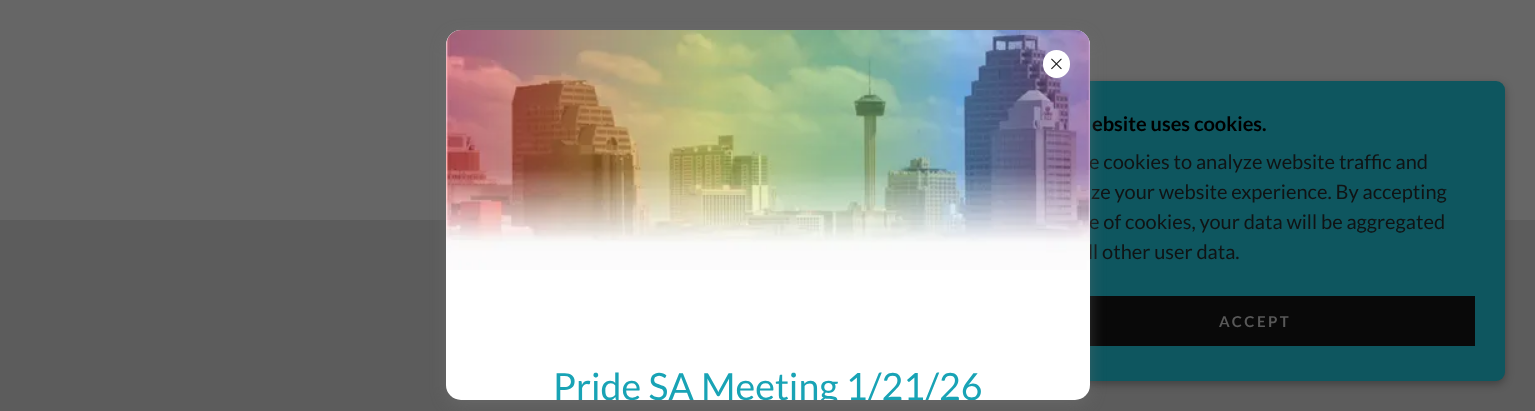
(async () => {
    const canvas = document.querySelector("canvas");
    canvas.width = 1535;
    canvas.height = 411;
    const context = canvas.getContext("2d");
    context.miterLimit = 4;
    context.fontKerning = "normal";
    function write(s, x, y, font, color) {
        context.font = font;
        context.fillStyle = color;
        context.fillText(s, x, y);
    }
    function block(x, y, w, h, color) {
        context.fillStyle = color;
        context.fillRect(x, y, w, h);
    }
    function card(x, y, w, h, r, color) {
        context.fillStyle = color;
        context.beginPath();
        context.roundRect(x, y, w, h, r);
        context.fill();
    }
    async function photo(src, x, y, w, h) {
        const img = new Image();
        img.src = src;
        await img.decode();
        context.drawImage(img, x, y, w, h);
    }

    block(0, 0, 1535, 411, "rgb(102, 102, 102)");
    block(0, 220, 1535, 191, "rgb(92, 92, 92)");
    context.fillStyle = "rgba(0, 0, 0, 0.3)";
    context.filter = "blur(4px)";
    context.beginPath();
    context.roundRect(1005, 84, 500, 300, 9);
    context.fill();
    context.filter = "none";
    card(1005, 81, 500, 300, 9, "rgb(14, 86, 95)");
    write("ebsite uses cookies.", 1092, 131, "bold 20px Lato", "rgb(0, 0, 0)");
    write("e cookies to analyze website traffic and", 1089, 169, "20px Lato", "rgb(16, 19, 20)");
    write("ze your website experience. By accepting", 1091, 199, "20px Lato", "rgb(16, 19, 20)");
    write("e of cookies, your data will be aggregated", 1089, 229, "20px Lato", "rgb(16, 19, 20)");
    write("ll other user data.", 1088, 259, "20px Lato", "rgb(16, 19, 20)");
    block(1090, 296, 385, 50, "rgb(9, 9, 9)");
    context.letterSpacing = "2.5px";
    write("ACCEPT", 1219, 327, "bold 15px Lato", "rgb(88, 88, 88)");
    context.fillStyle = "rgba(117, 117, 117, 0.4)";
    context.filter = "blur(7.5px)";
    context.beginPath();
    context.roundRect(446, 35, 644, 370, 15);
    context.fill();
    context.filter = "none";
    card(446, 30, 644, 370, 15, "rgb(255, 255, 255)");
    await photo("media/2.png", 446, 30, 644, 240);
    card(1043, 50, 27, 28, 13.5, "rgb(255, 255, 255)");
    await photo("media/1.png", 1051, 58, 11, 12);
    context.save();
    context.beginPath();
    context.roundRect(446, 30, 644, 370, 15);
    context.clip();
    context.letterSpacing = "0px";
    write("Pride SA Meeting 1/21/26", 553, 400, "37.5px Lato", "rgb(24, 163, 181)");
    context.restore();
})();
